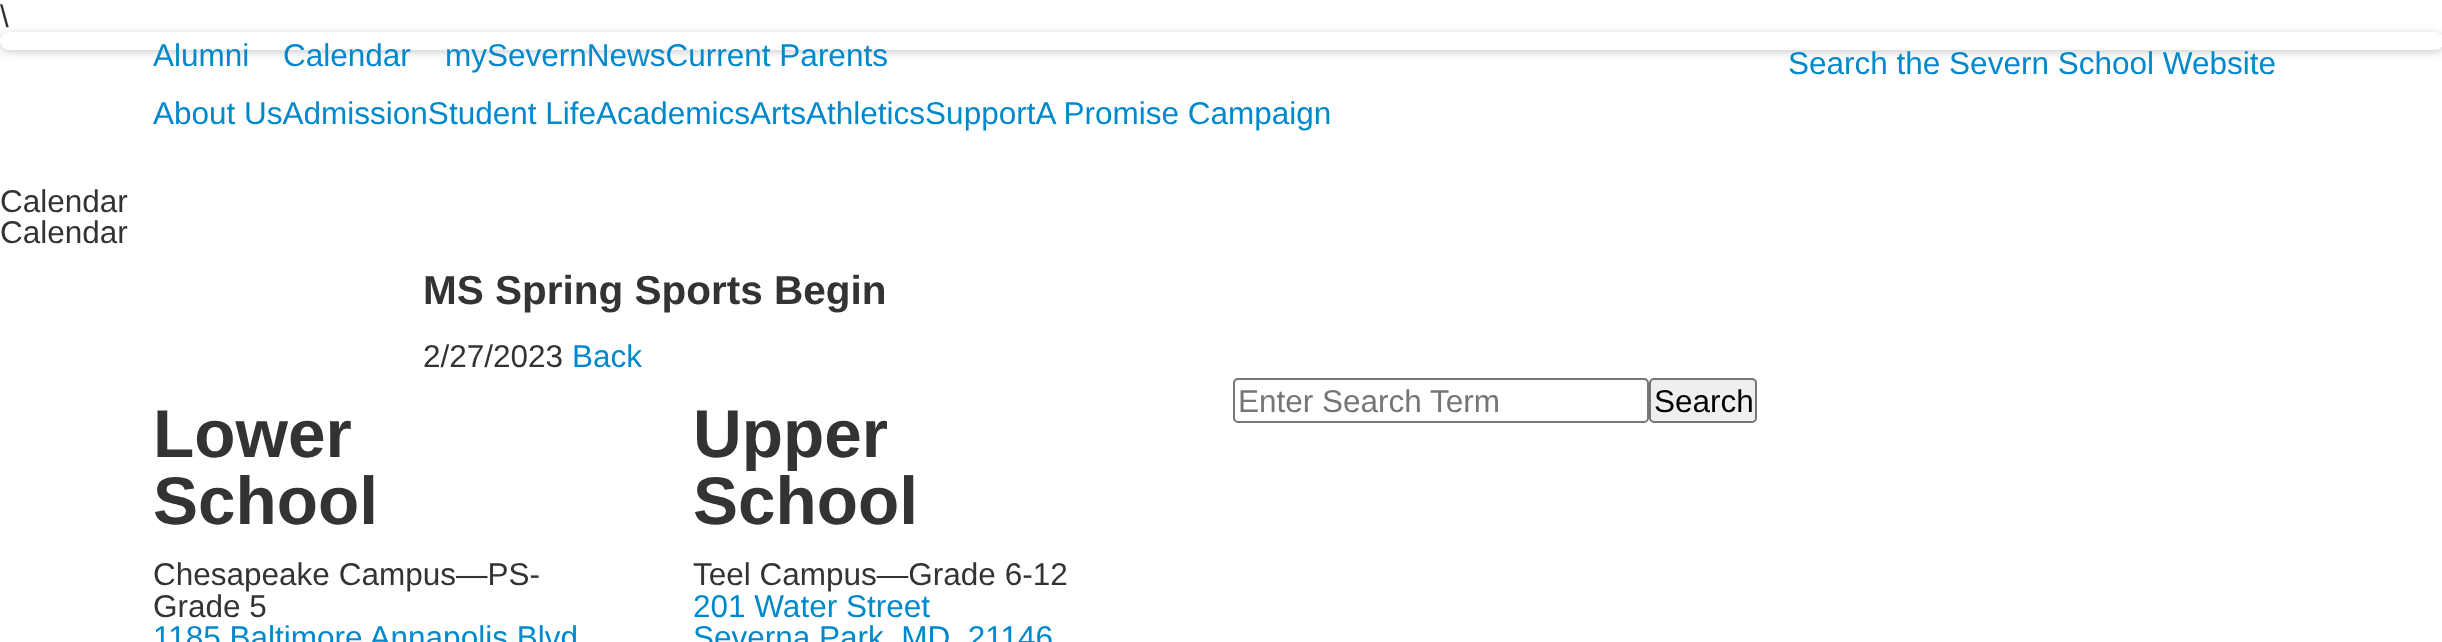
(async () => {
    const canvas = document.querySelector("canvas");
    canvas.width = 2442;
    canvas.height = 642;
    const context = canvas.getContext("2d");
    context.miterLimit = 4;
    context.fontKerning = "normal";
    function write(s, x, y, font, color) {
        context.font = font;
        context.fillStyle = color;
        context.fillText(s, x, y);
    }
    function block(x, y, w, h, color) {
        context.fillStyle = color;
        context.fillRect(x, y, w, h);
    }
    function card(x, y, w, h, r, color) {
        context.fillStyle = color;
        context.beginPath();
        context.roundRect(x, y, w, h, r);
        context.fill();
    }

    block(0, 0, 2442, 642, "rgb(255, 255, 255)");
    write("\\", 0, 27, "31.5px Liberation Sans", "rgb(51, 51, 51)");
    context.fillStyle = "rgba(0, 0, 0, 0.2)";
    context.filter = "blur(4.5px)";
    context.beginPath();
    context.roundRect(0, 34, 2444, 18, 9);
    context.fill();
    context.filter = "none";
    card(0, 32, 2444, 18, 9, "rgb(255, 255, 255)");
    write("Alumni", 153, 66, "31.5px Liberation Sans", "rgb(0, 136, 204)");
    write("Calendar", 283, 66, "31.5px Liberation Sans", "rgb(0, 136, 204)");
    write("mySevernNewsCurrent Parents", 445, 66, "31.5px Liberation Sans", "rgb(0, 136, 204)");
    write("Search the Severn School Website", 1788, 74, "31.5px Liberation Sans", "rgb(0, 136, 204)");
    write("About UsAdmissionStudent LifeAcademicsArtsAthleticsSupportA Promise Campaign", 153, 124, "31.5px Liberation Sans", "rgb(0, 136, 204)");
    write("Calendar", 0, 212, "31.5px Liberation Sans", "rgb(51, 51, 51)");
    write("Calendar", 0, 243, "31.5px Liberation Sans", "rgb(51, 51, 51)");
    write("MS Spring Sports Begin", 423, 304, "bold 40.5px Liberation Sans", "rgb(51, 51, 51)");
    write("2/27/2023", 423, 367, "31.5px Liberation Sans", "rgb(51, 51, 51)");
    write("Back", 572, 367, "31.5px Liberation Sans", "rgb(0, 136, 204)");
    context.beginPath();
    context.roundRect(1234, 379, 414, 43, 4);
    context.strokeStyle = "rgb(118, 118, 118)";
    context.lineWidth = 2;
    context.stroke();
    write("Enter Search Term", 1238, 412, "31.5px Liberation Sans", "rgb(117, 117, 117)");
    context.fillStyle = "rgb(239, 239, 239)";
    context.beginPath();
    context.roundRect(1650, 379, 106, 43, 4);
    context.fill();
    context.stroke();
    write("Search", 1654, 412, "31.5px Liberation Sans", "rgb(0, 0, 0)");
    write("Lower", 153, 457, "bold 67.5px Liberation Sans", "rgb(51, 51, 51)");
    write("School", 153, 524, "bold 67.5px Liberation Sans", "rgb(51, 51, 51)");
    write("Chesapeake Campus—PS-", 153, 585, "31.5px Liberation Sans", "rgb(51, 51, 51)");
    write("Grade 5", 153, 617, "31.5px Liberation Sans", "rgb(51, 51, 51)");
    write("1185 Baltimore Annapolis Blvd", 153, 648, "31.5px Liberation Sans", "rgb(0, 136, 204)");
    write("Upper", 693, 457, "bold 67.5px Liberation Sans", "rgb(51, 51, 51)");
    write("School", 693, 524, "bold 67.5px Liberation Sans", "rgb(51, 51, 51)");
    write("Teel Campus—Grade 6-12", 693, 585, "31.5px Liberation Sans", "rgb(51, 51, 51)");
    write("201 Water Street", 693, 617, "31.5px Liberation Sans", "rgb(0, 136, 204)");
    write("Severna Park, MD  21146", 693, 648, "31.5px Liberation Sans", "rgb(0, 136, 204)");
})();
